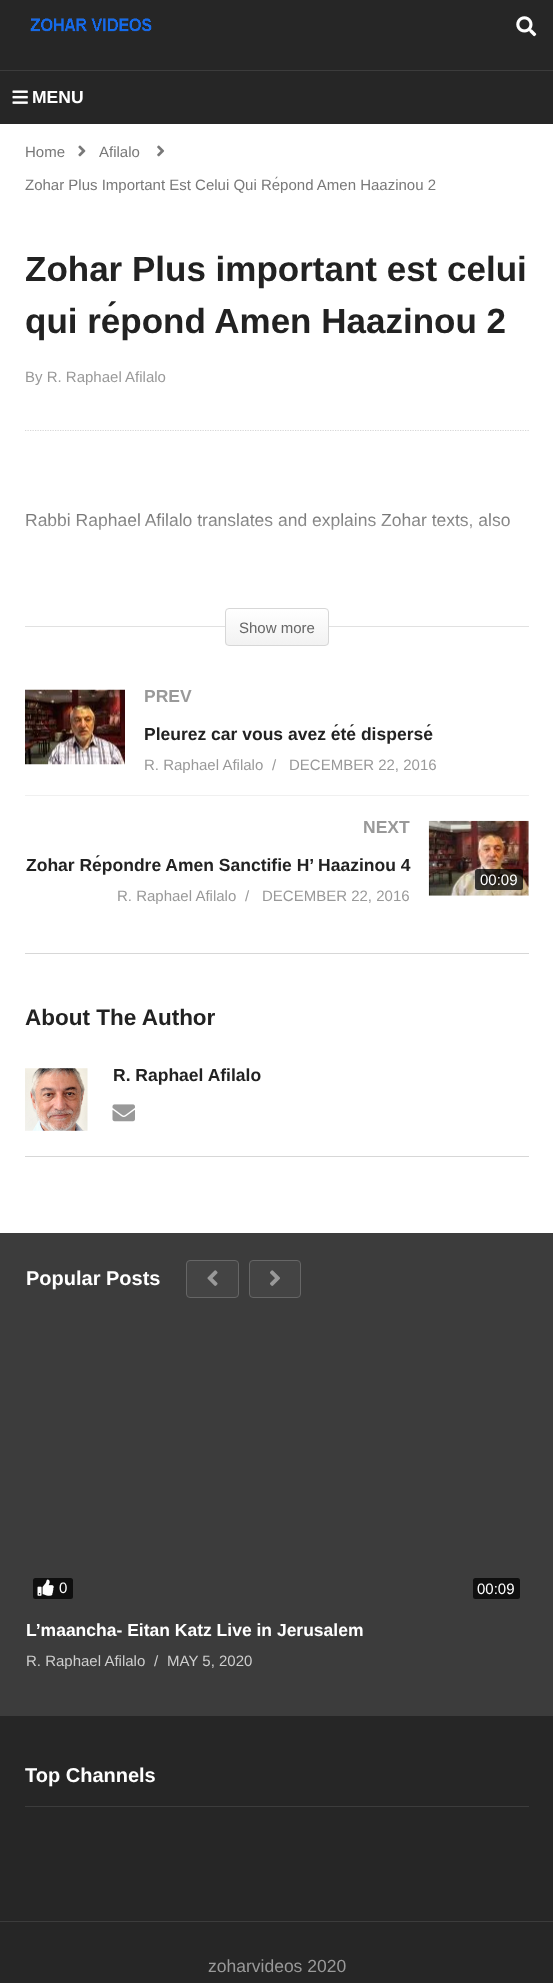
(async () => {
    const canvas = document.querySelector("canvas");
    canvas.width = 553;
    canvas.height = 1983;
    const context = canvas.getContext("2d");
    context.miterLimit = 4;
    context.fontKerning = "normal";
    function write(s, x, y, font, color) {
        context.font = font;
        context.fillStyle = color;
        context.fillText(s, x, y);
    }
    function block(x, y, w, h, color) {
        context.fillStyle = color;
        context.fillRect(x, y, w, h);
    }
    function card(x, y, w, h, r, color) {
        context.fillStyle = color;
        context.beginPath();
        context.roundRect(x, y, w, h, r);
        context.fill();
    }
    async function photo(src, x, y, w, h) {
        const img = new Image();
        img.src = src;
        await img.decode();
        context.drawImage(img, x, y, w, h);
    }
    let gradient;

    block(0, 0, 553, 1983, "rgb(255, 255, 255)");
    block(0, 0, 553, 124, "rgb(38, 38, 38)");
    await photo("media/1.png", 30, 18, 122, 14);
    await photo("media/2.png", 516, 16, 21, 21);
    block(0, 70, 553, 1, "rgb(60, 60, 60)");
    await photo("media/3.png", 12, 90, 16, 14);
    write("MENU", 32, 103, "bold 17.5px Liberation Sans", "rgb(255, 255, 255)");
    write("Home", 25, 157, "15px Liberation Sans", "rgb(120, 120, 120)");
    await photo("media/4.png", 78, 145, 8, 12);
    write("Afilalo", 99, 157, "15px Liberation Sans", "rgb(120, 120, 120)");
    await photo("media/5.png", 157, 145, 8, 12);
    write("Zohar Plus Important Est Celui Qui Répond Amen Haazinou 2", 25, 190, "15px Liberation Sans", "rgb(120, 120, 120)");
    write("Zohar Plus important est celui", 25, 281, "bold 35px Liberation Sans", "rgb(34, 34, 34)");
    write("qui répond Amen Haazinou 2", 25, 333, "bold 35px Liberation Sans", "rgb(34, 34, 34)");
    context.beginPath();
    context.moveTo(25, 430.5);
    context.lineTo(529, 430.5);
    context.strokeStyle = "rgb(215, 215, 215)";
    context.lineWidth = 1.2;
    context.setLineDash([1.25, 1.25]);
    context.stroke();
    write("By R. Raphael Afilalo", 25, 382, "15px Liberation Sans", "rgb(153, 153, 153)");
    write("Rabbi Raphael Afilalo translates and explains Zohar texts, also", 25, 526, "17.5px Liberation Sans", "rgb(102, 102, 102)");
    gradient = context.createLinearGradient(277, 508, 277, 608);
    gradient.addColorStop(0, "rgba(255, 255, 255, 0)");
    gradient.addColorStop(0.63, "rgb(255, 255, 255)");
    context.fillStyle = gradient;
    context.fillRect(26, 513, 484, 17);
    block(25, 626, 200, 1, "rgb(225, 225, 225)");
    context.save();
    context.beginPath();
    context.roundRect(225, 608, 104, 38, 4);
    context.clip();
    gradient = context.createLinearGradient(277, 609, 277, 645);
    gradient.addColorStop(0, "rgb(255, 255, 255)");
    gradient.addColorStop(1, "rgb(242, 242, 242)");
    context.fillStyle = gradient;
    context.fillRect(225, 609, 104, 36);
    context.restore();
    context.beginPath();
    context.roundRect(225.5, 608.5, 103, 37, 3.5);
    context.lineWidth = 1;
    context.setLineDash([]);
    context.stroke();
    write("Show more", 239, 633, "15px Liberation Sans", "rgb(102, 102, 102)");
    block(329, 626, 200, 1, "rgb(225, 225, 225)");
    await photo("media/6.png", 25, 689, 100, 76);
    write("PREV", 144, 702, "bold 17.5px Liberation Sans", "rgb(153, 153, 153)");
    write("Pleurez car vous avez été dispersé", 144, 740, "bold 17.5px Liberation Sans", "rgb(34, 34, 34)");
    write("R. Raphael Afilalo", 144, 770, "15px Liberation Sans", "rgb(153, 153, 153)");
    write("/", 272, 770, "15px Liberation Sans", "rgb(153, 153, 153)");
    write("DECEMBER 22, 2016", 289, 770, "15px Liberation Sans", "rgb(153, 153, 153)");
    block(25, 795, 504, 1, "rgb(240, 240, 240)");
    write("NEXT", 363, 833, "bold 17.5px Liberation Sans", "rgb(153, 153, 153)");
    write("Zohar Répondre Amen Sanctifie H’ Haazinou 4", 26, 871, "bold 17.5px Liberation Sans", "rgb(34, 34, 34)");
    write("R. Raphael Afilalo", 117, 901, "15px Liberation Sans", "rgb(153, 153, 153)");
    write("/", 245, 901, "15px Liberation Sans", "rgb(153, 153, 153)");
    write("DECEMBER 22, 2016", 262, 901, "15px Liberation Sans", "rgb(153, 153, 153)");
    await photo("media/7.png", 428, 820, 101, 76);
    card(475, 869, 48, 21, 2.5, "rgba(0, 0, 0, 0.75)");
    write("00:09", 480, 885, "15px Liberation Sans", "rgb(255, 255, 255)");
    block(25, 953, 504, 1, "rgb(215, 215, 215)");
    write("About The Author", 25, 1025, "bold 22.5px Liberation Sans", "rgb(34, 34, 34)");
    await photo("media/8.png", 25, 1068, 63, 63);
    write("R. Raphael Afilalo", 113, 1081, "bold 17.5px Liberation Sans", "rgb(34, 34, 34)");
    await photo("media/9.png", 112, 1104, 23, 18);
    block(25, 1156, 504, 1, "rgb(215, 215, 215)");
    block(0, 1233, 553, 483, "rgb(60, 60, 60)");
    write("Popular Posts", 26, 1285, "bold 20px Liberation Sans", "rgb(255, 255, 255)");
    context.fillStyle = "rgb(68, 68, 68)";
    context.beginPath();
    context.roundRect(186.5, 1260.5, 52, 37, 3.5);
    context.fill();
    context.strokeStyle = "rgb(102, 102, 102)";
    context.stroke();
    await photo("media/10.png", 207, 1270, 11, 16);
    context.beginPath();
    context.roundRect(249.5, 1260.5, 51, 37, 3.5);
    context.fill();
    context.stroke();
    await photo("media/11.png", 270, 1270, 10, 16);
    card(33, 1578, 40, 21, 2.5, "rgb(15, 15, 15)");
    await photo("media/12.png", 37, 1579, 17, 17);
    write("0", 59, 1593, "15px Liberation Sans", "rgb(255, 255, 255)");
    card(473, 1578, 47, 21, 2.5, "rgb(15, 15, 15)");
    write("00:09", 477, 1594, "15px Liberation Sans", "rgb(255, 255, 255)");
    write("L’maancha- Eitan Katz Live in Jerusalem", 26, 1636, "bold 17.5px Liberation Sans", "rgb(255, 255, 255)");
    write("R. Raphael Afilalo", 26, 1666, "15px Liberation Sans", "rgb(206, 206, 206)");
    write("/", 154, 1666, "15px Liberation Sans", "rgb(206, 206, 206)");
    write("MAY 5, 2020", 167, 1666, "15px Liberation Sans", "rgb(206, 206, 206)");
    block(0, 1716, 553, 267, "rgb(38, 38, 38)");
    block(25, 1806, 504, 1, "rgb(60, 60, 60)");
    write("Top Channels", 25, 1782, "bold 20px Liberation Sans", "rgb(255, 255, 255)");
    block(0, 1921, 553, 1, "rgb(60, 60, 60)");
    write("zoharvideos 2020", 208, 1972, "17.5px Liberation Sans", "rgb(153, 153, 153)");
})();
